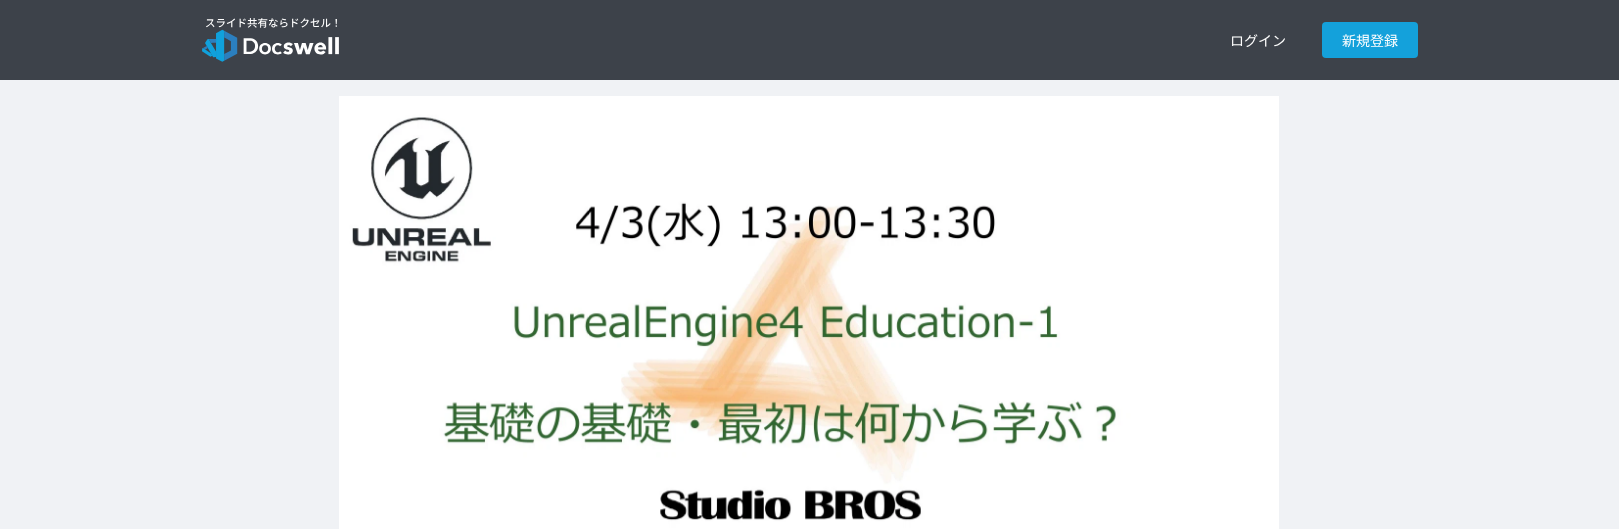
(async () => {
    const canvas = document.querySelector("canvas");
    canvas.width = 1619;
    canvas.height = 529;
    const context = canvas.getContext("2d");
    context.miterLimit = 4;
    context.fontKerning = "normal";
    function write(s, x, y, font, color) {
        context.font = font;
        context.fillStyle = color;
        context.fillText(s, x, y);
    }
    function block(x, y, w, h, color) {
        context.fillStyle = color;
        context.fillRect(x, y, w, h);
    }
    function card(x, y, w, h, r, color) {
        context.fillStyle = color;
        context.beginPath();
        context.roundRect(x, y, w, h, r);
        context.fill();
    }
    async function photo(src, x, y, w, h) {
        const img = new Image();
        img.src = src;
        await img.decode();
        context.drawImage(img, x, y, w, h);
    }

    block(0, 0, 1619, 529, "rgb(240, 242, 245)");
    block(0, 0, 1619, 80, "rgb(61, 66, 74)");
    await photo("media/1.png", 202, 18, 137, 44);
    write("ログイン", 1230, 46, "14px Noto Sans JP", "rgb(254, 254, 254)");
    card(1322, 22, 96, 36, 4, "rgb(20, 161, 219)");
    write("新規登録", 1342, 46, "14px Noto Sans JP", "rgb(254, 254, 254)");
    await photo("media/2.png", 339, 96, 940, 433);
})();
